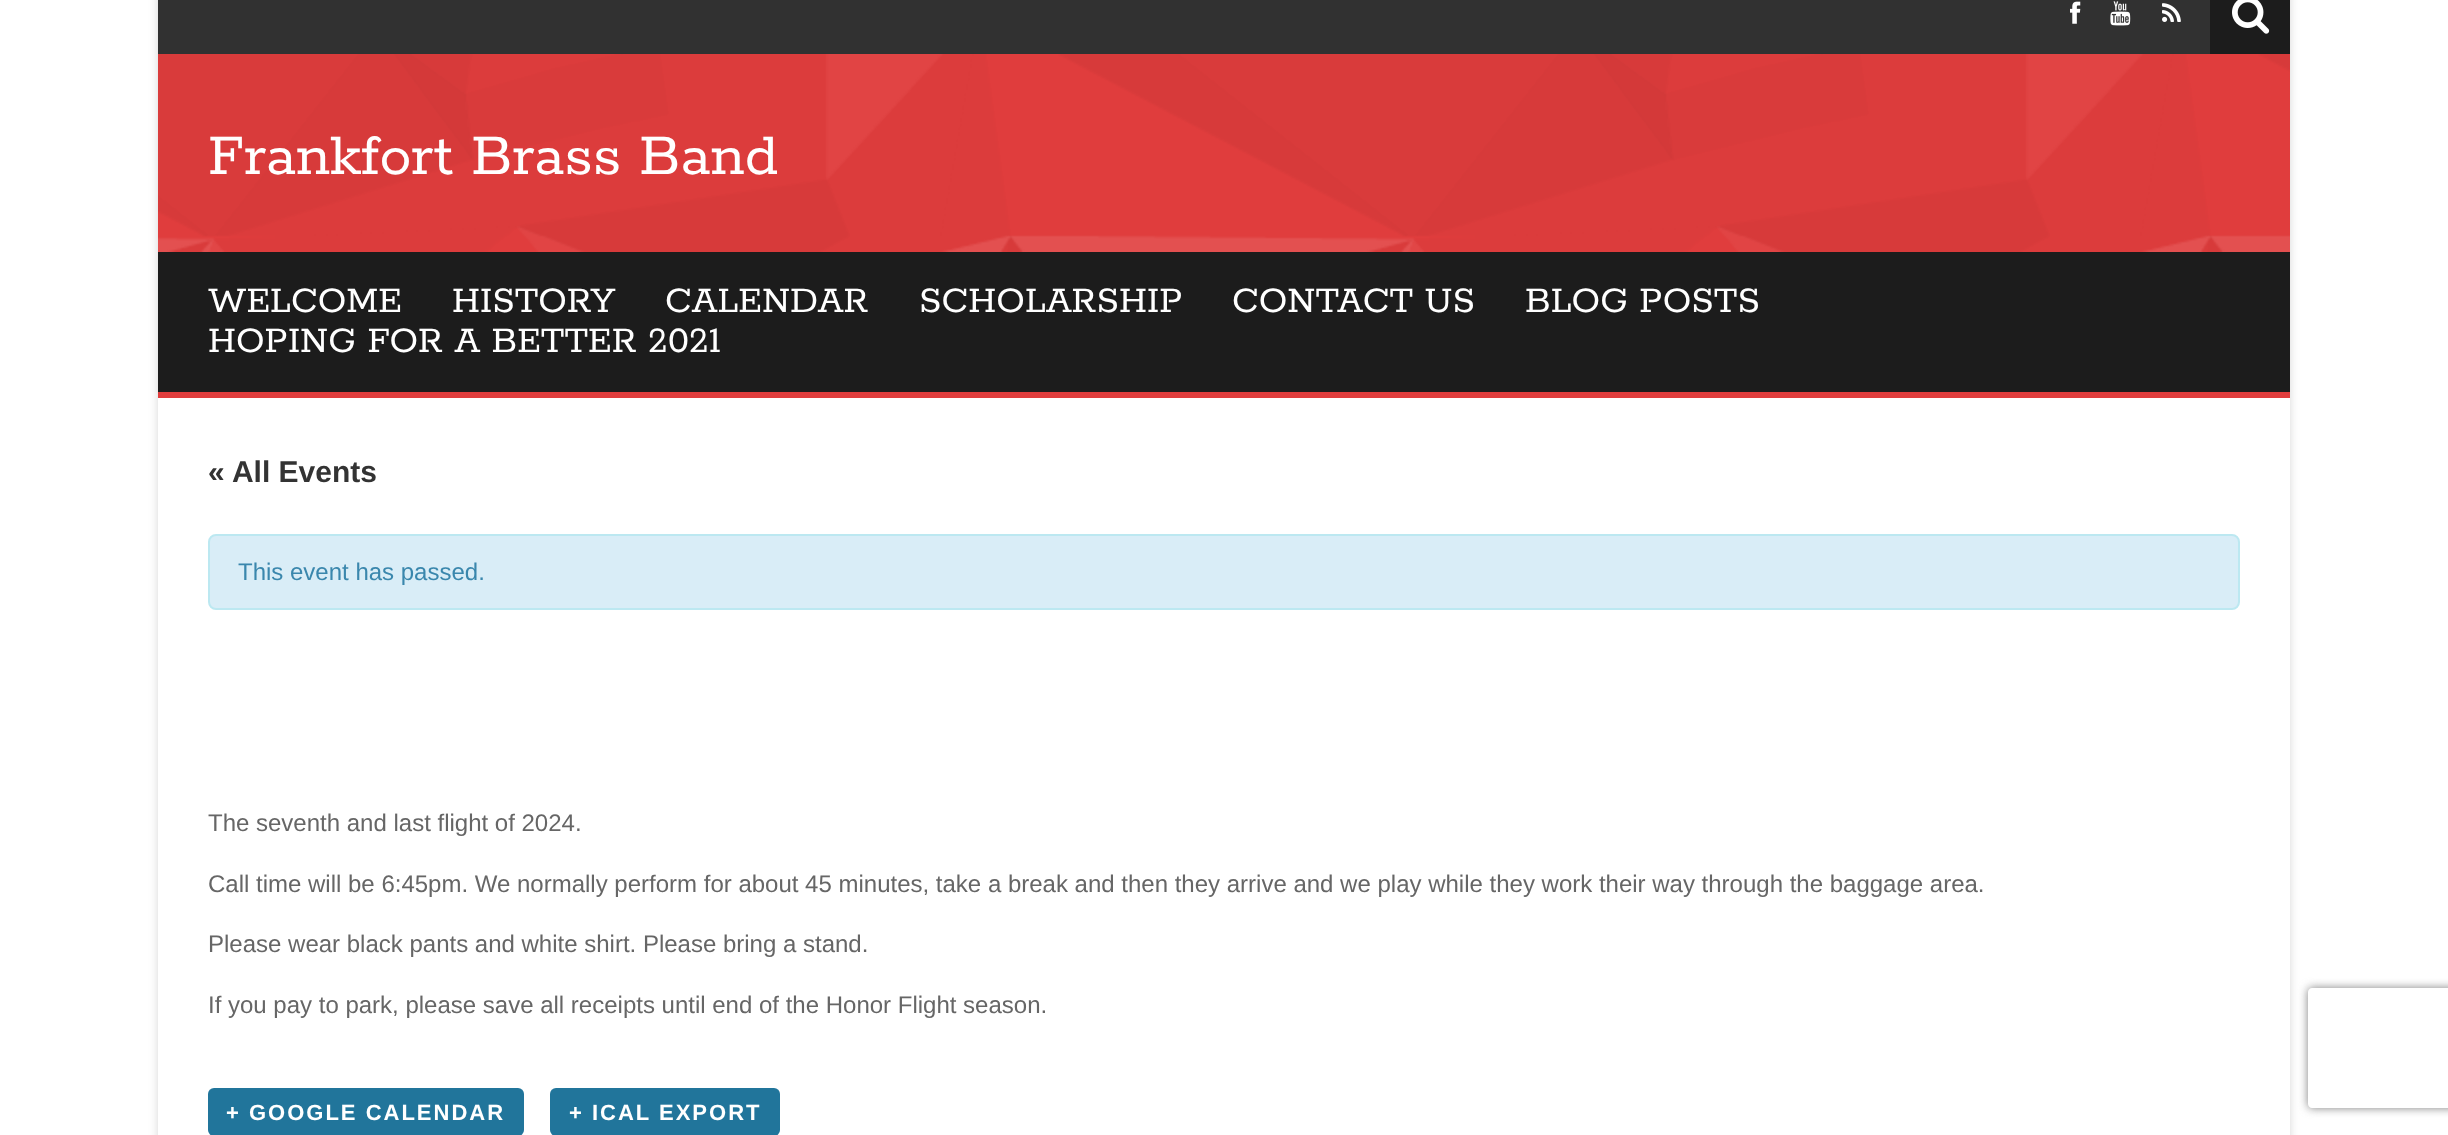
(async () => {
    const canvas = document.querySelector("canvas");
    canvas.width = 2448;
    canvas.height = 1135;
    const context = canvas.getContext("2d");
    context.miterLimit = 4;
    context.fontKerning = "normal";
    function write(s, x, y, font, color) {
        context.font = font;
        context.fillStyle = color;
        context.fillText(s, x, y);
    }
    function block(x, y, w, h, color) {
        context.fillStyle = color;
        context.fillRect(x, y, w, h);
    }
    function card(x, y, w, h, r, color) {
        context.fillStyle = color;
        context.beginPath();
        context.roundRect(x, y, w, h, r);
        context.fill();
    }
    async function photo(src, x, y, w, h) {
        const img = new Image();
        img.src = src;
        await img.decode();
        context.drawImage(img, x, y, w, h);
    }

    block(0, 0, 2448, 1135, "rgb(255, 255, 255)");
    context.save();
    context.beginPath();
    context.moveTo(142, 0);
    context.lineTo(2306, 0);
    context.lineTo(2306, 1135);
    context.lineTo(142, 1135);
    context.closePath();
    context.moveTo(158, -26);
    context.lineTo(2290, -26);
    context.lineTo(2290, 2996);
    context.lineTo(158, 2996);
    context.closePath();
    context.clip("evenodd");
    context.fillStyle = "rgba(202, 202, 202, 0.75)";
    context.filter = "blur(5px)";
    context.beginPath();
    context.rect(158, -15, 2132, 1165);
    context.fill();
    context.filter = "none";
    context.restore();
    block(158, 0, 2052, 54, "rgb(49, 49, 49)");
    await photo("media/1.png", 2070, 1, 11, 23);
    await photo("media/2.png", 2110, 1, 21, 25);
    await photo("media/3.png", 2162, 3, 19, 19);
    block(2210, 0, 80, 54, "rgb(28, 28, 28)");
    await photo("media/4.png", 2232, 0, 38, 34);
    block(158, 54, 2132, 198, "rgb(224, 61, 61)");
    await photo("media/5.png", 158, 54, 2132, 198);
    write("Frankfort Brass Band", 208, 174, "600 64px Rokkitt", "rgb(255, 255, 255)");
    block(158, 252, 2132, 140, "rgb(28, 28, 28)");
    block(158, 392, 2132, 6, "rgb(224, 61, 61)");
    write("WELCOME", 208, 312, "600 40px Rokkitt", "rgb(255, 255, 255)");
    write("HISTORY", 452, 312, "600 40px Rokkitt", "rgb(255, 255, 255)");
    write("CALENDAR", 665, 312, "600 40px Rokkitt", "rgb(255, 255, 255)");
    write("SCHOLARSHIP", 919, 312, "600 40px Rokkitt", "rgb(255, 255, 255)");
    write("CONTACT US", 1232, 312, "600 40px Rokkitt", "rgb(255, 255, 255)");
    write("BLOG POSTS", 1525, 312, "600 40px Rokkitt", "rgb(255, 255, 255)");
    write("HOPING FOR A BETTER 2021", 208, 352, "600 40px Rokkitt", "rgb(255, 255, 255)");
    write("« All Events", 208, 482, "bold 30px Liberation Sans", "rgb(51, 51, 51)");
    context.fillStyle = "rgb(217, 237, 247)";
    context.beginPath();
    context.roundRect(209, 535, 2030, 74, 7);
    context.fill();
    context.strokeStyle = "rgb(188, 232, 241)";
    context.lineWidth = 2;
    context.stroke();
    write("This event has passed.", 238, 580, "24px Liberation Sans", "rgb(58, 135, 173)");
    write("The seventh and last flight of 2024.", 208, 831, "24px Liberation Sans", "rgb(102, 102, 102)");
    write("Call time will be 6:45pm. We normally perform for about 45 minutes, take a break and then they arrive and we play while they work their way through the baggage area.", 208, 892, "24px Liberation Sans", "rgb(102, 102, 102)");
    write("Please wear black pants and white shirt. Please bring a stand.", 208, 952, "24px Liberation Sans", "rgb(102, 102, 102)");
    write("If you pay to park, please save all receipts until end of the Honor Flight season.", 208, 1013, "24px Liberation Sans", "rgb(102, 102, 102)");
    card(208, 1088, 316, 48, 6, "rgb(33, 117, 155)");
    context.letterSpacing = "2px";
    write("+ GOOGLE CALENDAR", 226, 1120, "bold 22px Liberation Sans", "rgb(255, 255, 255)");
    card(550, 1088, 230, 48, 6, "rgb(33, 117, 155)");
    write("+ ICAL EXPORT", 569, 1120, "bold 22px Liberation Sans", "rgb(255, 255, 255)");
    context.save();
    context.beginPath();
    context.moveTo(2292, 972);
    context.lineTo(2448, 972);
    context.lineTo(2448, 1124);
    context.lineTo(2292, 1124);
    context.closePath();
    context.moveTo(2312, 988);
    context.lineTo(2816, 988);
    context.bezierCurveTo(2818, 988, 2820, 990, 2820, 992);
    context.lineTo(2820, 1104);
    context.bezierCurveTo(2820, 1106, 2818, 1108, 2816, 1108);
    context.lineTo(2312, 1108);
    context.bezierCurveTo(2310, 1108, 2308, 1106, 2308, 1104);
    context.lineTo(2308, 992);
    context.bezierCurveTo(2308, 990, 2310, 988, 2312, 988);
    context.closePath();
    context.clip("evenodd");
    context.fillStyle = "rgb(128, 128, 128)";
    context.filter = "blur(5px)";
    context.beginPath();
    context.roundRect(2308, 988, 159, 120, 4);
    context.fill();
    context.filter = "none";
    context.restore();
})();
